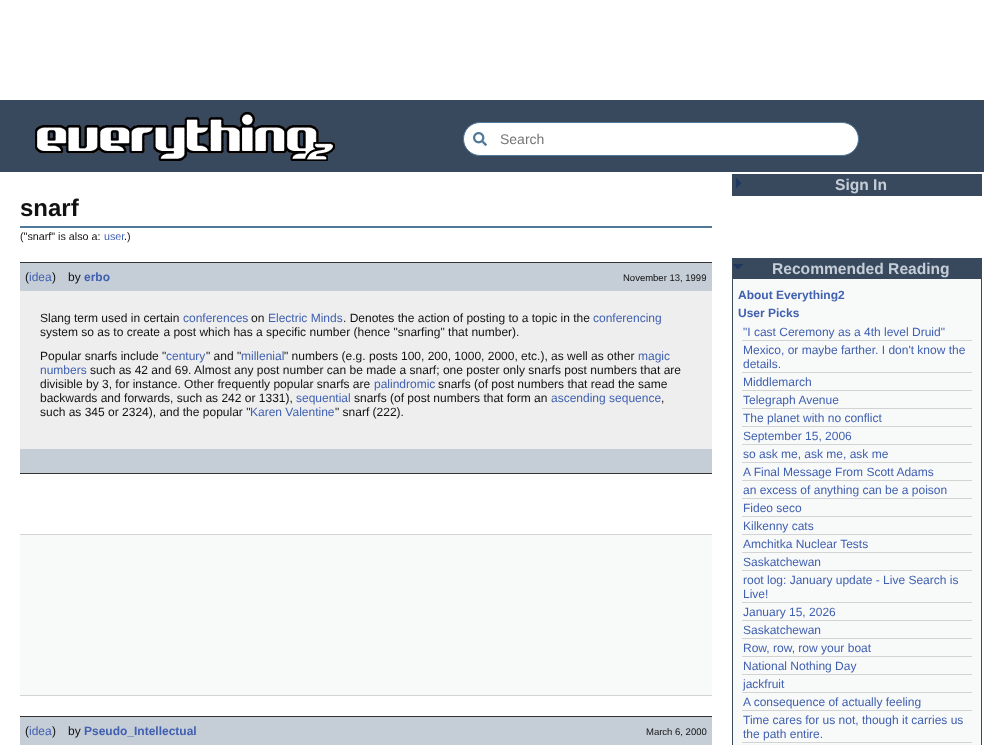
(async () => {
    const canvas = document.querySelector("canvas");
    canvas.width = 984;
    canvas.height = 745;
    const context = canvas.getContext("2d");
    context.miterLimit = 4;
    context.fontKerning = "normal";
    function write(s, x, y, font, color) {
        context.font = font;
        context.fillStyle = color;
        context.fillText(s, x, y);
    }
    function block(x, y, w, h, color) {
        context.fillStyle = color;
        context.fillRect(x, y, w, h);
    }
    async function photo(src, x, y, w, h) {
        const img = new Image();
        img.src = src;
        await img.decode();
        context.drawImage(img, x, y, w, h);
    }

    block(0, 0, 984, 745, "rgb(255, 255, 255)");
    block(0, 100, 984, 72, "rgb(56, 73, 94)");
    await photo("media/1.png", 35, 112, 300, 49);
    context.fillStyle = "rgb(255, 255, 255)";
    context.beginPath();
    context.roundRect(463.5, 122.5, 395, 33, 16.5);
    context.fill();
    context.strokeStyle = "rgb(80, 120, 152)";
    context.stroke();
    await photo("media/2.png", 473, 132, 14, 14);
    write("Search", 500, 144, "14px Liberation Sans", "rgb(117, 117, 117)");
    block(20, 226, 692, 2, "rgb(80, 120, 152)");
    write("snarf", 20, 216, "bold 24px Liberation Sans", "rgb(17, 17, 17)");
    write("(\"snarf\" is also a:", 20, 240, "10.75px Liberation Sans", "rgb(17, 17, 17)");
    write("user", 104, 240, "10.75px Liberation Sans", "rgb(64, 96, 176)");
    write(".)", 124, 240, "10.75px Liberation Sans", "rgb(17, 17, 17)");
    block(20, 263, 692, 28, "rgb(197, 205, 215)");
    block(20, 262, 692, 1, "rgb(51, 51, 51)");
    write("(", 25, 281, "12px Liberation Sans", "rgb(17, 17, 17)");
    write("idea", 29, 281, "12px Liberation Sans", "rgb(64, 96, 176)");
    write(")", 52, 281, "12px Liberation Sans", "rgb(17, 17, 17)");
    write("by", 68, 281, "12px Liberation Sans", "rgb(17, 17, 17)");
    write("erbo", 84, 281, "bold 12px Liberation Sans", "rgb(64, 96, 176)");
    write("November 13, 1999", 623, 281, "9.5px Liberation Sans", "rgb(17, 17, 17)");
    block(20, 291, 692, 158, "rgb(238, 238, 238)");
    write("Slang term used in certain", 40, 322, "12px Liberation Sans", "rgb(17, 17, 17)");
    write("conferences", 183, 322, "12px Liberation Sans", "rgb(64, 96, 176)");
    write("on", 251, 322, "12px Liberation Sans", "rgb(17, 17, 17)");
    write("Electric Minds", 268, 322, "12px Liberation Sans", "rgb(64, 96, 176)");
    write(". Denotes the action of posting to a topic in the", 343, 322, "12px Liberation Sans", "rgb(17, 17, 17)");
    write("conferencing", 593, 322, "12px Liberation Sans", "rgb(64, 96, 176)");
    write("system so as to create a post which has a specific number (hence \"snarfing\" that number).", 40, 336, "12px Liberation Sans", "rgb(17, 17, 17)");
    write("Popular snarfs include \"", 40, 360, "12px Liberation Sans", "rgb(17, 17, 17)");
    write("century", 166, 360, "12px Liberation Sans", "rgb(64, 96, 176)");
    write("\" and \"", 206, 360, "12px Liberation Sans", "rgb(17, 17, 17)");
    write("millenial", 241, 360, "12px Liberation Sans", "rgb(64, 96, 176)");
    write("\" numbers (e.g. posts 100, 200, 1000, 2000, etc.), as well as other", 284, 360, "12px Liberation Sans", "rgb(17, 17, 17)");
    write("magic", 638, 360, "12px Liberation Sans", "rgb(64, 96, 176)");
    write("numbers", 40, 374, "12px Liberation Sans", "rgb(64, 96, 176)");
    write("such as 42 and 69. Almost any post number can be made a snarf; one poster only snarfs post numbers that are", 90, 374, "12px Liberation Sans", "rgb(17, 17, 17)");
    write("divisible by 3, for instance. Other frequently popular snarfs are", 40, 388, "12px Liberation Sans", "rgb(17, 17, 17)");
    write("palindromic", 374, 388, "12px Liberation Sans", "rgb(64, 96, 176)");
    write("snarfs (of post numbers that read the same", 438, 388, "12px Liberation Sans", "rgb(17, 17, 17)");
    write("backwards and forwards, such as 242 or 1331),", 40, 402, "12px Liberation Sans", "rgb(17, 17, 17)");
    write("sequential", 296, 402, "12px Liberation Sans", "rgb(64, 96, 176)");
    write("snarfs (of post numbers that form an", 354, 402, "12px Liberation Sans", "rgb(17, 17, 17)");
    write("ascending sequence", 551, 402, "12px Liberation Sans", "rgb(64, 96, 176)");
    write(",", 661, 402, "12px Liberation Sans", "rgb(17, 17, 17)");
    write("such as 345 or 2324), and the popular \"", 40, 416, "12px Liberation Sans", "rgb(17, 17, 17)");
    write("Karen Valentine", 250, 416, "12px Liberation Sans", "rgb(64, 96, 176)");
    write("\" snarf (222).", 335, 416, "12px Liberation Sans", "rgb(17, 17, 17)");
    block(20, 449, 692, 24, "rgb(197, 205, 215)");
    block(20, 473, 692, 1, "rgb(51, 51, 51)");
    block(20, 535, 692, 160, "rgb(248, 249, 249)");
    block(20, 534, 692, 1, "rgb(211, 211, 211)");
    block(20, 695, 692, 1, "rgb(211, 211, 211)");
    block(20, 717, 692, 28, "rgb(197, 205, 215)");
    block(20, 716, 692, 1, "rgb(51, 51, 51)");
    write("(", 25, 735, "12px Liberation Sans", "rgb(17, 17, 17)");
    write("idea", 29, 735, "12px Liberation Sans", "rgb(64, 96, 176)");
    write(")", 52, 735, "12px Liberation Sans", "rgb(17, 17, 17)");
    write("by", 68, 735, "12px Liberation Sans", "rgb(17, 17, 17)");
    write("Pseudo_Intellectual", 84, 735, "bold 12px Liberation Sans", "rgb(64, 96, 176)");
    write("March 6, 2000", 646, 735, "9.5px Liberation Sans", "rgb(17, 17, 17)");
    context.strokeStyle = "rgb(56, 73, 94)";
    context.strokeRect(732.5, 174.5, 249, 21);
    block(733, 175, 248, 20, "rgb(56, 73, 94)");
    await photo("media/3.png", 736, 178, 5, 10);
    write("Sign In", 835, 190, "bold 15.6px Liberation Sans", "rgb(197, 205, 215)");
    block(733, 279, 248, 466, "rgb(248, 249, 249)");
    context.strokeRect(732.5, 258.5, 249, 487);
    block(733, 259, 248, 20, "rgb(56, 73, 94)");
    await photo("media/4.png", 733, 264, 10, 5);
    write("Recommended Reading", 772, 274, "bold 15.6px Liberation Sans", "rgb(197, 205, 215)");
    write("About Everything2", 738, 299, "bold 12px Liberation Sans", "rgb(64, 96, 176)");
    write("User Picks", 738, 317, "bold 12px Liberation Sans", "rgb(64, 96, 176)");
    block(742, 340, 230, 1, "rgb(211, 211, 211)");
    write("\"I cast Ceremony as a 4th level Druid\"", 743, 336, "12px Liberation Sans", "rgb(64, 96, 176)");
    block(742, 372, 230, 1, "rgb(211, 211, 211)");
    write("Mexico, or maybe farther. I don't know the", 743, 354, "12px Liberation Sans", "rgb(64, 96, 176)");
    write("details.", 743, 368, "12px Liberation Sans", "rgb(64, 96, 176)");
    block(742, 390, 230, 1, "rgb(211, 211, 211)");
    write("Middlemarch", 743, 386, "12px Liberation Sans", "rgb(64, 96, 176)");
    block(742, 408, 230, 1, "rgb(211, 211, 211)");
    write("Telegraph Avenue", 743, 404, "12px Liberation Sans", "rgb(64, 96, 176)");
    block(742, 426, 230, 1, "rgb(211, 211, 211)");
    write("The planet with no conflict", 743, 422, "12px Liberation Sans", "rgb(64, 96, 176)");
    block(742, 444, 230, 1, "rgb(211, 211, 211)");
    write("September 15, 2006", 743, 440, "12px Liberation Sans", "rgb(64, 96, 176)");
    block(742, 462, 230, 1, "rgb(211, 211, 211)");
    write("so ask me, ask me, ask me", 743, 458, "12px Liberation Sans", "rgb(64, 96, 176)");
    block(742, 480, 230, 1, "rgb(211, 211, 211)");
    write("A Final Message From Scott Adams", 743, 476, "12px Liberation Sans", "rgb(64, 96, 176)");
    block(742, 498, 230, 1, "rgb(211, 211, 211)");
    write("an excess of anything can be a poison", 743, 494, "12px Liberation Sans", "rgb(64, 96, 176)");
    block(742, 516, 230, 1, "rgb(211, 211, 211)");
    write("Fideo seco", 743, 512, "12px Liberation Sans", "rgb(64, 96, 176)");
    block(742, 534, 230, 1, "rgb(211, 211, 211)");
    write("Kilkenny cats", 743, 530, "12px Liberation Sans", "rgb(64, 96, 176)");
    block(742, 552, 230, 1, "rgb(211, 211, 211)");
    write("Amchitka Nuclear Tests", 743, 548, "12px Liberation Sans", "rgb(64, 96, 176)");
    block(742, 570, 230, 1, "rgb(211, 211, 211)");
    write("Saskatchewan", 743, 566, "12px Liberation Sans", "rgb(64, 96, 176)");
    block(742, 602, 230, 1, "rgb(211, 211, 211)");
    write("root log: January update - Live Search is", 743, 584, "12px Liberation Sans", "rgb(64, 96, 176)");
    write("Live!", 743, 598, "12px Liberation Sans", "rgb(64, 96, 176)");
    block(742, 620, 230, 1, "rgb(211, 211, 211)");
    write("January 15, 2026", 743, 616, "12px Liberation Sans", "rgb(64, 96, 176)");
    block(742, 638, 230, 1, "rgb(211, 211, 211)");
    write("Saskatchewan", 743, 634, "12px Liberation Sans", "rgb(64, 96, 176)");
    block(742, 656, 230, 1, "rgb(211, 211, 211)");
    write("Row, row, row your boat", 743, 652, "12px Liberation Sans", "rgb(64, 96, 176)");
    block(742, 674, 230, 1, "rgb(211, 211, 211)");
    write("National Nothing Day", 743, 670, "12px Liberation Sans", "rgb(64, 96, 176)");
    block(742, 692, 230, 1, "rgb(211, 211, 211)");
    write("jackfruit", 743, 688, "12px Liberation Sans", "rgb(64, 96, 176)");
    block(742, 710, 230, 1, "rgb(211, 211, 211)");
    write("A consequence of actually feeling", 743, 706, "12px Liberation Sans", "rgb(64, 96, 176)");
    block(742, 742, 230, 1, "rgb(211, 211, 211)");
    write("Time cares for us not, though it carries us", 743, 724, "12px Liberation Sans", "rgb(64, 96, 176)");
    write("the path entire.", 743, 738, "12px Liberation Sans", "rgb(64, 96, 176)");
})();
